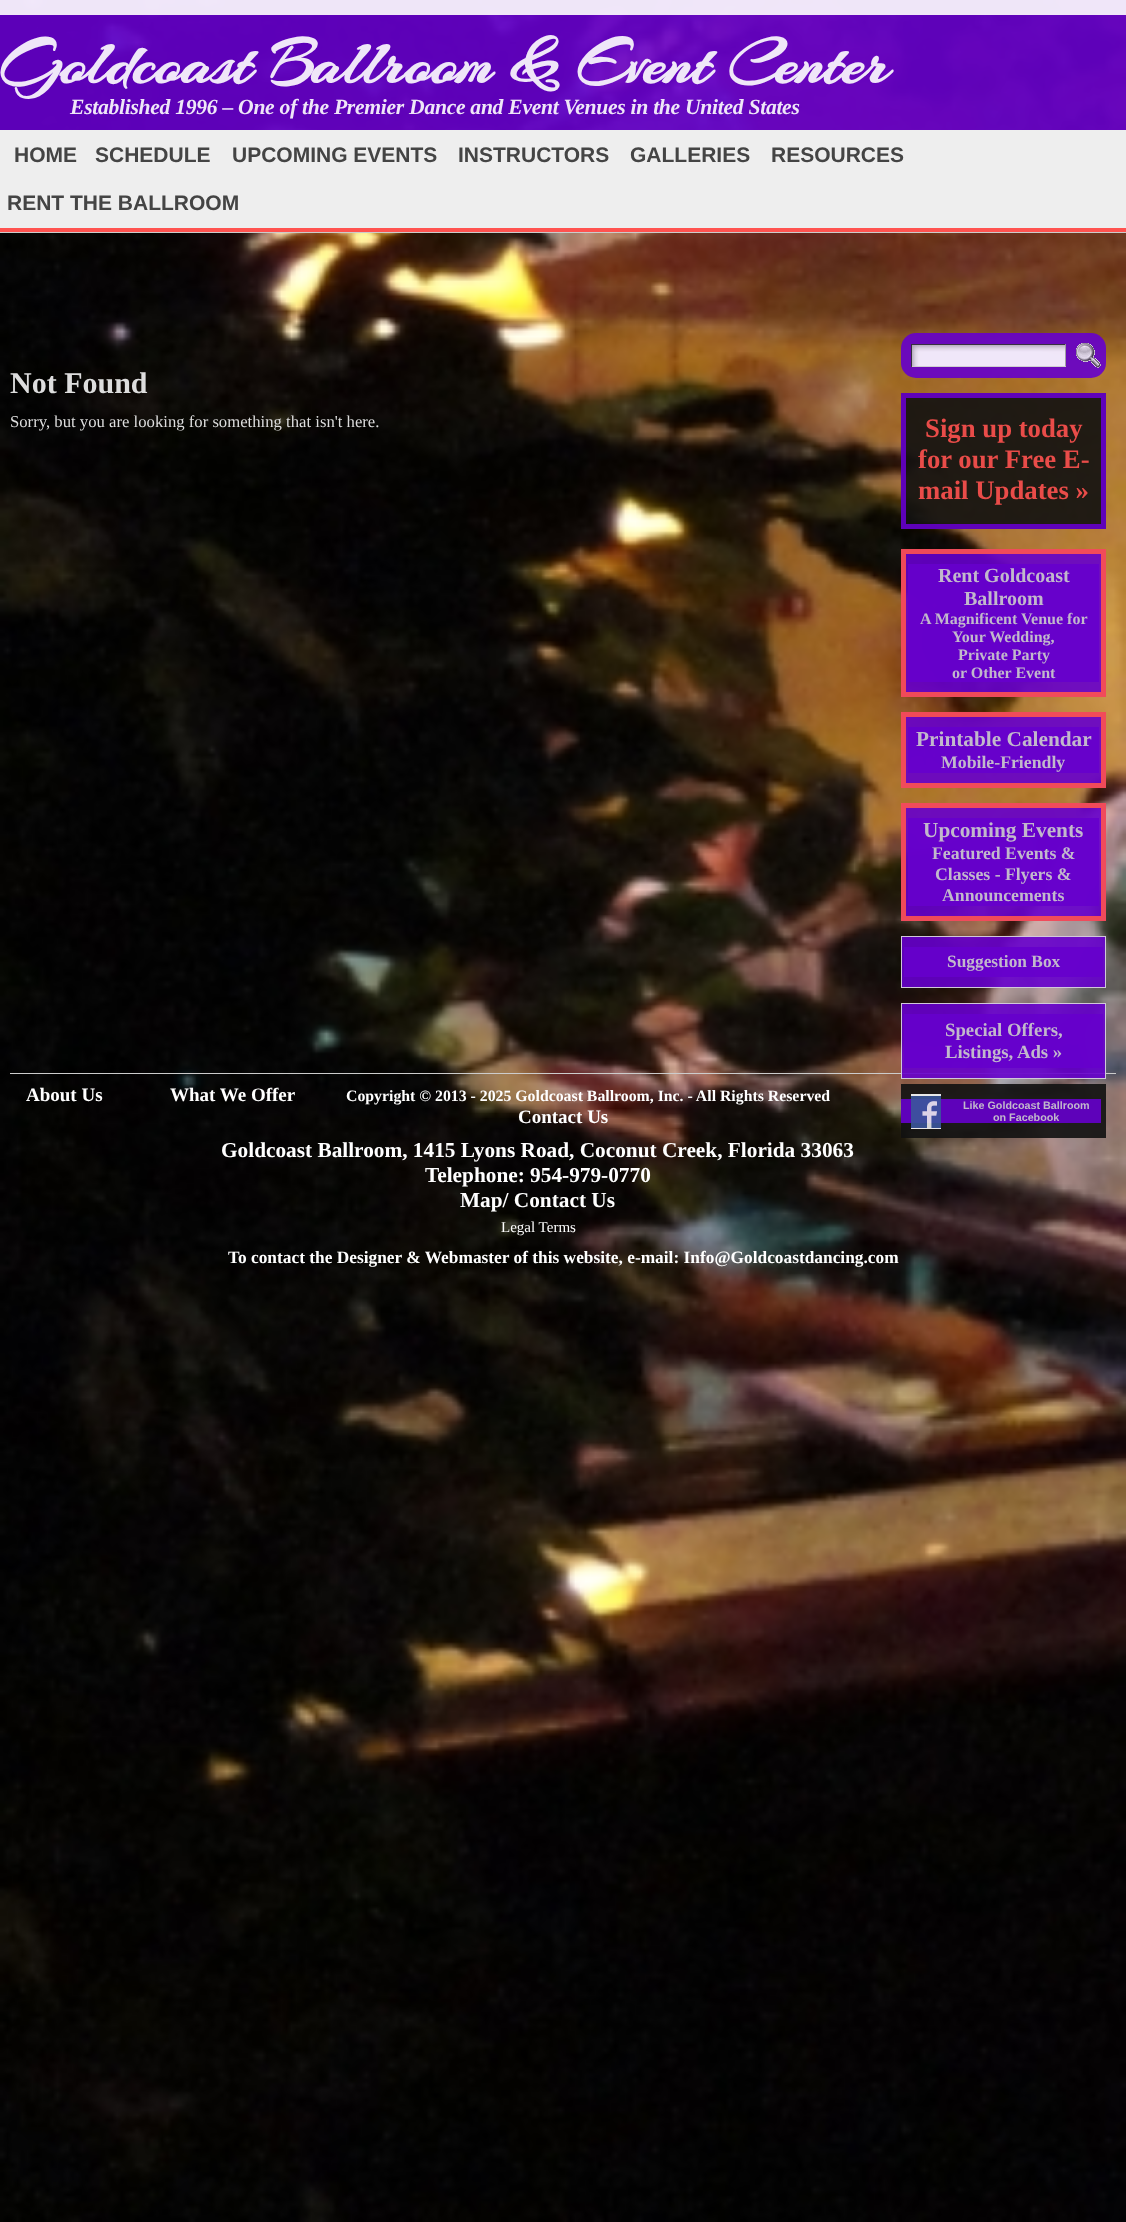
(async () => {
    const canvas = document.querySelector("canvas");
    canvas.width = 1126;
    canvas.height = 2222;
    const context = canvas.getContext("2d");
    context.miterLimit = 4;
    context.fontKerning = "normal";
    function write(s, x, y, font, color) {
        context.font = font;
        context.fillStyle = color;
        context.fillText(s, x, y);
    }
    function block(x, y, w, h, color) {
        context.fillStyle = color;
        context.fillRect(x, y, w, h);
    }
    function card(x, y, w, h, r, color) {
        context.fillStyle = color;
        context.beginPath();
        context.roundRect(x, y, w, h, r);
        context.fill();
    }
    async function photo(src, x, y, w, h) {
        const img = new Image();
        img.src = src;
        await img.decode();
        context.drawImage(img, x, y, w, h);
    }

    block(0, 0, 1126, 2222, "rgb(255, 255, 255)");
    await photo("media/1.png", 0, 0, 1126, 2222);
    block(0, 0, 1126, 130, "rgba(102, 0, 204, 0.9)");
    block(0, 0, 1126, 15, "rgba(255, 255, 255, 0.9)");
    context.letterSpacing = "-0.3px";
    write("Goldcoast Ballroom & Event Center", 0, 83, "bold 66.7px Arizonia", "rgb(239, 230, 248)");
    write("Established 1996 – One of the Premier Dance and Event Venues in the United States", 70, 114, "italic bold 21.65px Liberation Serif", "rgb(239, 230, 248)");
    block(0, 130, 1126, 98, "rgb(238, 238, 238)");
    context.letterSpacing = "0px";
    write("HOME", 14, 162, "bold 21px Liberation Sans", "rgb(68, 68, 68)");
    write("SCHEDULE", 95, 162, "bold 21px Liberation Sans", "rgb(68, 68, 68)");
    write("UPCOMING EVENTS", 232, 162, "bold 21px Liberation Sans", "rgb(68, 68, 68)");
    write("INSTRUCTORS", 458, 162, "bold 21px Liberation Sans", "rgb(68, 68, 68)");
    write("GALLERIES", 630, 162, "bold 21px Liberation Sans", "rgb(68, 68, 68)");
    write("RESOURCES", 771, 162, "bold 21px Liberation Sans", "rgb(68, 68, 68)");
    write("RENT THE BALLROOM", 7, 210, "bold 21px Liberation Sans", "rgb(68, 68, 68)");
    block(0, 228, 1126, 4, "rgb(255, 82, 79)");
    block(0, 232, 1126, 1, "rgb(204, 204, 204)");
    write("Not Found", 10, 393, "bold 30px Liberation Serif", "rgb(221, 221, 221)");
    write("Sorry, but you are looking for something that isn't here.", 10, 427, "16.7px Liberation Serif", "rgb(221, 221, 221)");
    card(901, 333, 205, 45, 15, "rgba(102, 0, 204, 0.9)");
    await photo("media/2.png", 912, 345, 154, 22);
    block(911, 344, 155, 1, "rgb(57, 47, 65)");
    block(1065, 344, 1, 23, "rgba(153, 153, 153, 0.9)");
    block(911, 366, 155, 1, "rgba(204, 204, 204, 0.9)");
    block(911, 344, 1, 23, "rgba(51, 51, 51, 0.9)");
    await photo("media/3.png", 1076, 343, 25, 25);
    block(901, 393, 205, 136, "rgba(17, 17, 17, 0.9)");
    context.strokeStyle = "rgba(102, 0, 204, 0.9)";
    context.lineWidth = 5;
    context.strokeRect(903.5, 395.5, 200, 131);
    write("Sign up today", 925, 437, "bold 26.75px Liberation Serif", "rgb(233, 76, 73)");
    write("for our Free E-", 918, 468, "bold 26.75px Liberation Serif", "rgb(233, 76, 73)");
    write("mail Updates »", 918, 499, "bold 26.75px Liberation Serif", "rgb(233, 76, 73)");
    block(901, 549, 205, 148, "rgba(102, 0, 204, 0.9)");
    context.strokeStyle = "rgba(255, 82, 79, 0.9)";
    context.strokeRect(903.5, 551.5, 200, 143);
    block(908, 564, 191, 118, "rgba(102, 0, 204, 0.9)");
    write("Rent Goldcoast", 938, 582, "bold 20px Liberation Serif", "rgb(194, 184, 204)");
    write("Ballroom", 964, 605, "bold 20px Liberation Serif", "rgb(194, 184, 204)");
    write("A Magnificent Venue for", 920, 624, "bold 16px Liberation Serif", "rgb(194, 184, 204)");
    write("Your Wedding,", 952, 642, "bold 16px Liberation Serif", "rgb(194, 184, 204)");
    write("Private Party", 958, 660, "bold 16px Liberation Serif", "rgb(194, 184, 204)");
    write("or Other Event", 952, 678, "bold 16px Liberation Serif", "rgb(194, 184, 204)");
    block(901, 712, 205, 76, "rgba(102, 0, 204, 0.9)");
    context.strokeRect(903.5, 714.5, 200, 71);
    block(908, 727, 191, 46, "rgba(102, 0, 204, 0.9)");
    write("Printable Calendar", 916, 746, "bold 21.3px Liberation Serif", "rgb(194, 184, 204)");
    write("Mobile-Friendly", 941, 768, "bold 17.75px Liberation Serif", "rgb(194, 184, 204)");
    block(901, 803, 205, 118, "rgba(102, 0, 204, 0.9)");
    context.strokeRect(903.5, 805.5, 200, 113);
    block(908, 818, 191, 88, "rgba(102, 0, 204, 0.9)");
    write("Upcoming Events", 923, 837, "bold 21.3px Liberation Serif", "rgb(194, 184, 204)");
    write("Featured Events &", 932, 859, "bold 17.75px Liberation Serif", "rgb(194, 184, 204)");
    write("Classes - Flyers &", 935, 880, "bold 17.75px Liberation Serif", "rgb(194, 184, 204)");
    write("Announcements", 942, 901, "bold 17.75px Liberation Serif", "rgb(194, 184, 204)");
    block(901, 936, 205, 52, "rgba(102, 0, 204, 0.9)");
    context.strokeStyle = "rgba(221, 221, 221, 0.9)";
    context.lineWidth = 1;
    context.strokeRect(901.5, 936.5, 204, 51);
    block(904, 947, 199, 30, "rgba(102, 0, 204, 0.9)");
    write("Suggestion Box", 947, 967, "bold 17.35px Liberation Serif", "rgb(194, 184, 204)");
    block(10, 1073, 1106, 1, "rgb(204, 204, 204)");
    block(901, 1003, 205, 76, "rgba(102, 0, 204, 0.9)");
    context.strokeRect(901.5, 1003.5, 204, 75);
    block(904, 1014, 199, 54, "rgba(102, 0, 204, 0.9)");
    write("Special Offers,", 945, 1036, "bold 18.75px Liberation Serif", "rgb(194, 184, 204)");
    write("Listings, Ads »", 945, 1058, "bold 18.75px Liberation Serif", "rgb(194, 184, 204)");
    block(901, 1084, 205, 54, "rgba(17, 17, 17, 0.9)");
    block(901, 1099, 200, 24, "rgba(102, 0, 204, 0.9)");
    await photo("media/4.png", 911, 1094, 30, 35);
    write("Like Goldcoast Ballroom", 963, 1109, "bold 10.75px Liberation Sans", "rgb(194, 184, 204)");
    write("on Facebook", 993, 1121, "bold 10.75px Liberation Sans", "rgb(194, 184, 204)");
    write("About Us", 26, 1101, "bold 19px Liberation Serif", "rgb(255, 255, 255)");
    write("What We Offer", 170, 1101, "bold 19px Liberation Serif", "rgb(255, 255, 255)");
    write("Copyright © 2013 - 2025 Goldcoast Ballroom, Inc. - All Rights Reserved", 346, 1101, "bold 15.8px Liberation Serif", "rgb(255, 255, 255)");
    write("Contact Us", 518, 1123, "bold 19px Liberation Serif", "rgb(255, 255, 255)");
    write("Goldcoast Ballroom, 1415 Lyons Road, Coconut Creek, Florida 33063", 221, 1157, "bold 21.3px Liberation Serif", "rgb(255, 255, 255)");
    write("Telephone: 954-979-0770", 425, 1182, "bold 21.3px Liberation Serif", "rgb(255, 255, 255)");
    write("Map/ Contact Us", 460, 1207, "bold 21.3px Liberation Serif", "rgb(255, 255, 255)");
    write("Legal Terms", 501, 1232, "15px Liberation Serif", "rgb(255, 255, 255)");
    write("To contact the Designer & Webmaster of this website, e-mail: Info@Goldcoastdancing.com", 228, 1263, "bold 17.35px Liberation Serif", "rgb(255, 255, 255)");
})();
